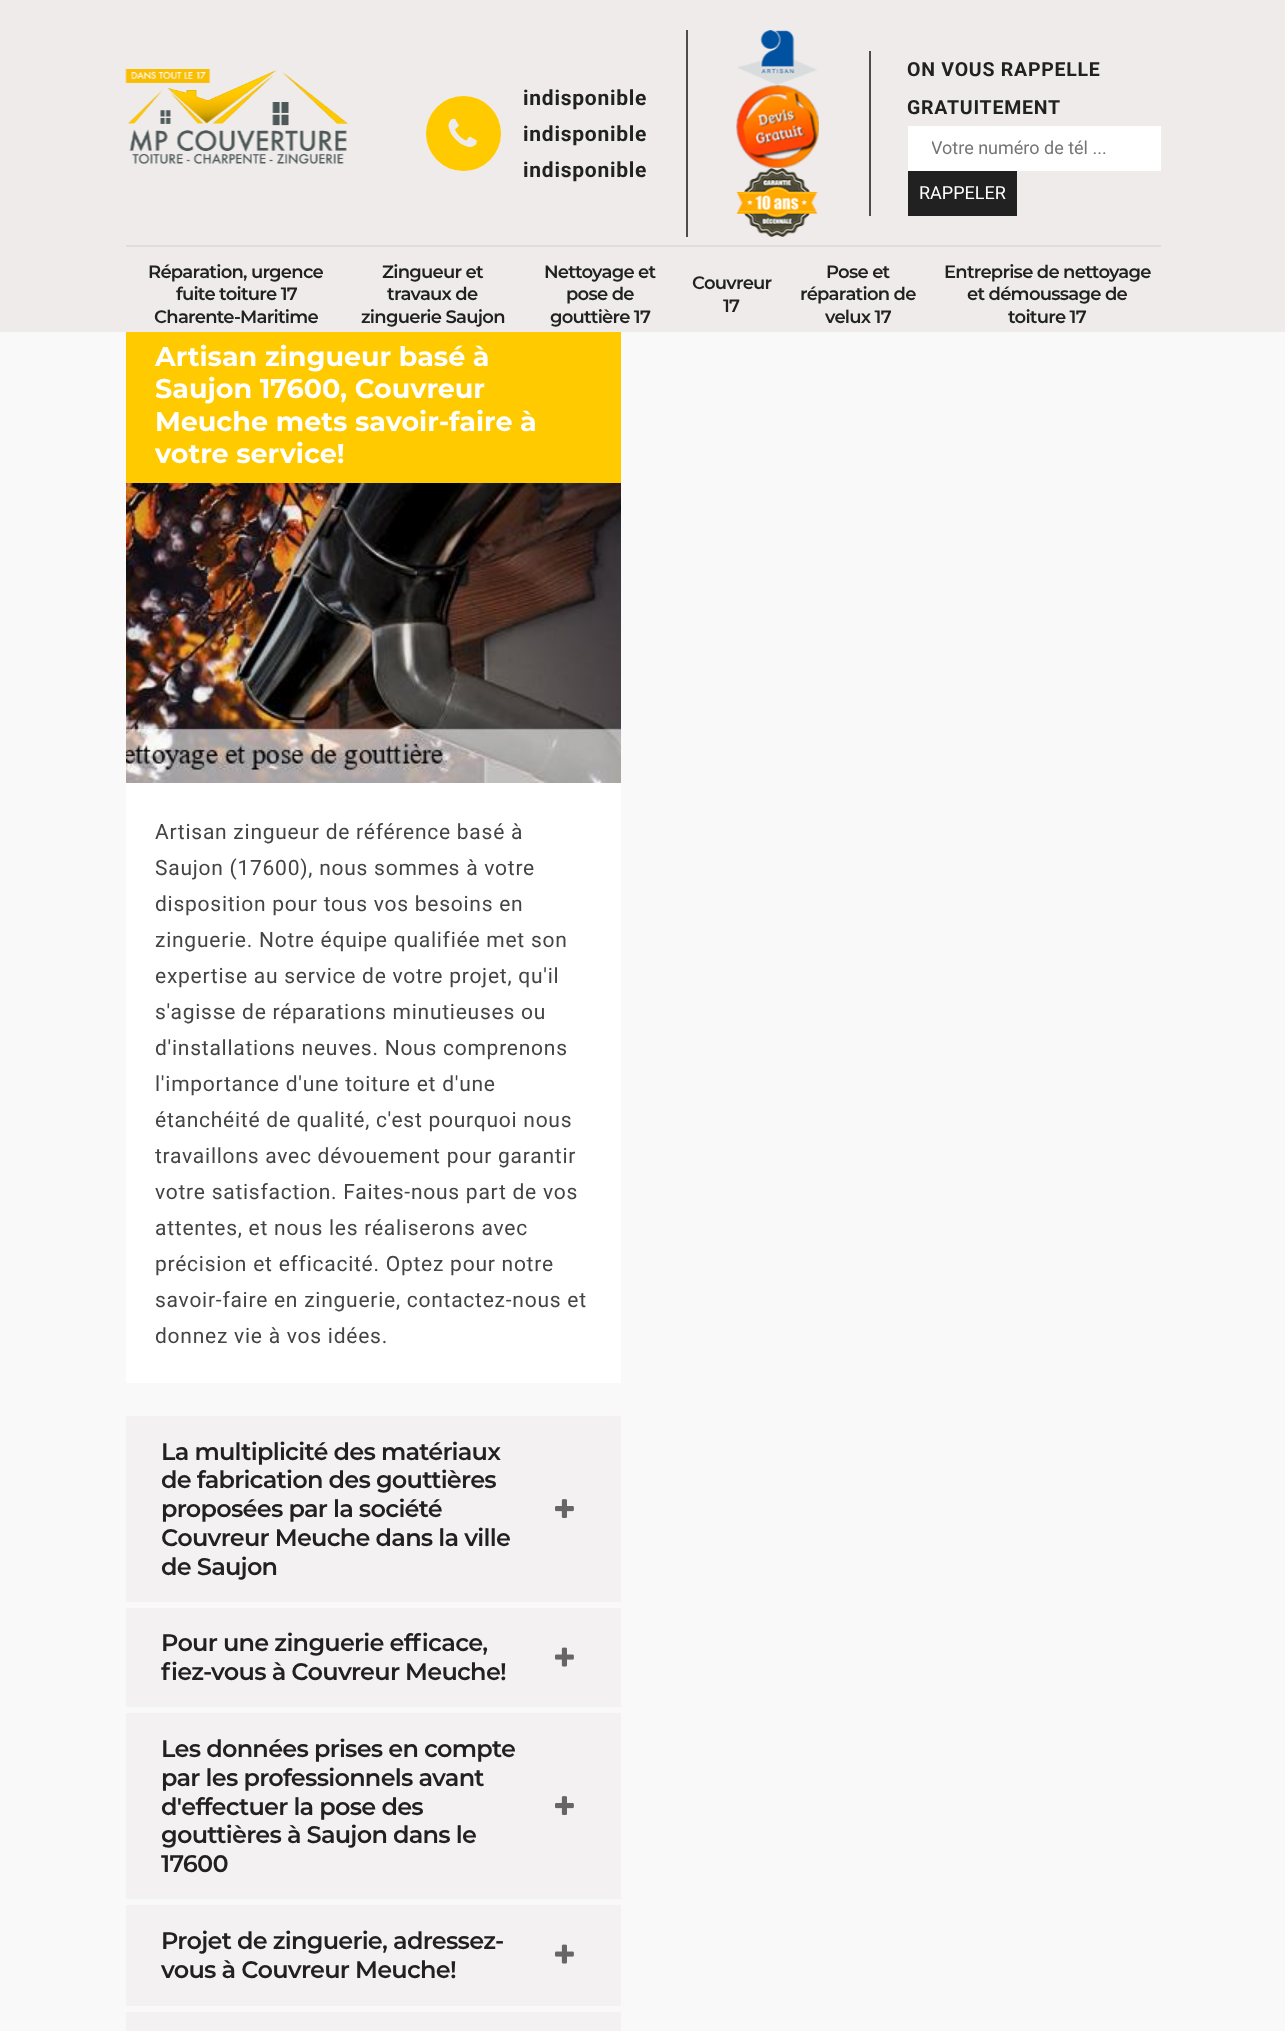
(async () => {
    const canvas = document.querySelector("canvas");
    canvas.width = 1285;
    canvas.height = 2031;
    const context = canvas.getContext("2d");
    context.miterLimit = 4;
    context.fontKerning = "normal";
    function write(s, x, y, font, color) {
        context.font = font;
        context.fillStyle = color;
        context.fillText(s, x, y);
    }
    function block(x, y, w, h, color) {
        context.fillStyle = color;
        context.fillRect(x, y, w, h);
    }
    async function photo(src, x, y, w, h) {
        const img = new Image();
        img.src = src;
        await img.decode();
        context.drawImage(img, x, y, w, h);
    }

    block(0, 0, 1285, 2031, "rgb(249, 249, 249)");
    block(0, 0, 1285, 332, "rgb(239, 235, 235)");
    await photo("media/1.png", 125, 69, 224, 95);
    context.fillStyle = "rgb(255, 202, 0)";
    context.beginPath();
    context.arc(463.5, 133.5, 37.5, 0, Math.PI * 2);
    context.fill();
    await photo("media/2.png", 448, 118, 29, 29);
    context.letterSpacing = "0.75px";
    write("indisponible", 523, 105, "bold 21px Roboto", "rgb(33, 33, 33)");
    write("indisponible", 523, 141, "bold 21px Roboto", "rgb(33, 33, 33)");
    write("indisponible", 523, 177, "bold 21px Roboto", "rgb(33, 33, 33)");
    block(686, 30, 2, 207, "rgb(78, 76, 76)");
    await photo("media/3.png", 737, 30, 80, 55);
    await photo("media/4.png", 736, 85, 83, 83);
    await photo("media/5.png", 736, 168, 82, 69);
    block(869, 51, 2, 165, "rgb(78, 76, 76)");
    write("ON VOUS RAPPELLE", 907, 76, "bold 19.5px Roboto", "rgb(33, 33, 33)");
    write("GRATUITEMENT", 907, 114, "bold 19.5px Roboto", "rgb(33, 33, 33)");
    block(908, 126, 253, 45, "rgb(255, 255, 255)");
    context.save();
    context.beginPath();
    context.rect(932, 138, 205, 21);
    context.clip();
    context.letterSpacing = "0px";
    write("Votre numéro de tél ...", 931, 154, "18px Roboto", "rgb(117, 117, 117)");
    context.restore();
    block(908, 171, 109, 45, "rgb(33, 33, 33)");
    context.letterSpacing = "0px";
    write("RAPPELER", 919, 199, "18px Roboto", "rgb(255, 255, 255)");
    block(126, 245, 1035, 2, "rgb(221, 221, 221)");
    context.letterSpacing = "-0.75px";
    write("Réparation, urgence", 148, 278, "600 18px Montserrat", "rgb(33, 33, 33)");
    write("fuite toiture 17", 176, 300, "600 18px Montserrat", "rgb(33, 33, 33)");
    write("Charente-Maritime", 154, 323, "600 18px Montserrat", "rgb(33, 33, 33)");
    write("Zingueur et", 382, 278, "600 18px Montserrat", "rgb(33, 33, 33)");
    write("travaux de", 387, 300, "600 18px Montserrat", "rgb(33, 33, 33)");
    write("zinguerie Saujon", 361, 323, "600 18px Montserrat", "rgb(33, 33, 33)");
    write("Nettoyage et", 544, 278, "600 18px Montserrat", "rgb(33, 33, 33)");
    write("pose de", 566, 300, "600 18px Montserrat", "rgb(33, 33, 33)");
    write("gouttière 17", 550, 323, "600 18px Montserrat", "rgb(33, 33, 33)");
    write("Couvreur", 692, 289, "600 18px Montserrat", "rgb(33, 33, 33)");
    write("17", 723, 312, "600 18px Montserrat", "rgb(33, 33, 33)");
    write("Pose et", 826, 278, "600 18px Montserrat", "rgb(33, 33, 33)");
    write("réparation de", 800, 300, "600 18px Montserrat", "rgb(33, 33, 33)");
    write("velux 17", 825, 323, "600 18px Montserrat", "rgb(33, 33, 33)");
    write("Entreprise de nettoyage", 944, 278, "600 18px Montserrat", "rgb(33, 33, 33)");
    write("et démoussage de", 967, 300, "600 18px Montserrat", "rgb(33, 33, 33)");
    write("toiture 17", 1008, 323, "600 18px Montserrat", "rgb(33, 33, 33)");
    block(126, 783, 495, 600, "rgb(255, 255, 255)");
    block(126, 332, 495, 151, "rgb(255, 202, 0)");
    context.letterSpacing = "0px";
    write("Artisan zingueur basé à", 155, 366, "bold 27px Montserrat", "rgb(255, 255, 255)");
    write("Saujon 17600, Couvreur", 155, 398, "bold 27px Montserrat", "rgb(255, 255, 255)");
    write("Meuche mets savoir-faire à", 155, 431, "bold 27px Montserrat", "rgb(255, 255, 255)");
    write("votre service!", 155, 463, "bold 27px Montserrat", "rgb(255, 255, 255)");
    await photo("media/6.png", 126, 483, 495, 300);
    context.letterSpacing = "0.75px";
    write("Artisan zingueur de référence basé à", 155, 839, "21px Roboto", "rgb(68, 68, 68)");
    write("Saujon (17600), nous sommes à votre", 155, 875, "21px Roboto", "rgb(68, 68, 68)");
    write("disposition pour tous vos besoins en", 155, 911, "21px Roboto", "rgb(68, 68, 68)");
    write("zinguerie. Notre équipe qualifiée met son", 155, 947, "21px Roboto", "rgb(68, 68, 68)");
    write("expertise au service de votre projet, qu'il", 155, 983, "21px Roboto", "rgb(68, 68, 68)");
    write("s'agisse de réparations minutieuses ou", 155, 1019, "21px Roboto", "rgb(68, 68, 68)");
    write("d'installations neuves. Nous comprenons", 155, 1055, "21px Roboto", "rgb(68, 68, 68)");
    write("l'importance d'une toiture et d'une", 155, 1091, "21px Roboto", "rgb(68, 68, 68)");
    write("étanchéité de qualité, c'est pourquoi nous", 155, 1127, "21px Roboto", "rgb(68, 68, 68)");
    write("travaillons avec dévouement pour garantir", 155, 1163, "21px Roboto", "rgb(68, 68, 68)");
    write("votre satisfaction. Faites-nous part de vos", 155, 1199, "21px Roboto", "rgb(68, 68, 68)");
    write("attentes, et nous les réaliserons avec", 155, 1235, "21px Roboto", "rgb(68, 68, 68)");
    write("précision et efficacité. Optez pour notre", 155, 1271, "21px Roboto", "rgb(68, 68, 68)");
    write("savoir-faire en zinguerie, contactez-nous et", 155, 1307, "21px Roboto", "rgb(68, 68, 68)");
    write("donnez vie à vos idées.", 155, 1343, "21px Roboto", "rgb(68, 68, 68)");
    block(126, 1416, 495, 186, "rgb(243, 241, 241)");
    context.letterSpacing = "-0.75px";
    write("La multiplicité des matériaux", 161, 1460, "600 24px Montserrat", "rgb(33, 33, 33)");
    write("de fabrication des gouttières", 161, 1488, "600 24px Montserrat", "rgb(33, 33, 33)");
    write("proposées par la société", 161, 1517, "600 24px Montserrat", "rgb(33, 33, 33)");
    write("Couvreur Meuche dans la ville", 161, 1546, "600 24px Montserrat", "rgb(33, 33, 33)");
    write("de Saujon", 161, 1575, "600 24px Montserrat", "rgb(33, 33, 33)");
    await photo("media/7.png", 555, 1499, 19, 19);
    block(126, 1608, 495, 99, "rgb(243, 241, 241)");
    write("Pour une zinguerie efficace,", 161, 1651, "600 24px Montserrat", "rgb(33, 33, 33)");
    write("fiez-vous à Couvreur Meuche!", 161, 1680, "600 24px Montserrat", "rgb(33, 33, 33)");
    await photo("media/8.png", 555, 1647, 19, 20);
    block(126, 1713, 495, 186, "rgb(243, 241, 241)");
    write("Les données prises en compte", 161, 1757, "600 24px Montserrat", "rgb(33, 33, 33)");
    write("par les professionnels avant", 161, 1786, "600 24px Montserrat", "rgb(33, 33, 33)");
    write("d'effectuer la pose des", 161, 1815, "600 24px Montserrat", "rgb(33, 33, 33)");
    write("gouttières à Saujon dans le", 161, 1843, "600 24px Montserrat", "rgb(33, 33, 33)");
    write("17600", 161, 1872, "600 24px Montserrat", "rgb(33, 33, 33)");
    await photo("media/7.png", 555, 1796, 19, 19);
    block(126, 1905, 495, 101, "rgb(243, 241, 241)");
    write("Projet de zinguerie, adressez-", 161, 1949, "600 24px Montserrat", "rgb(33, 33, 33)");
    write("vous à Couvreur Meuche!", 161, 1978, "600 24px Montserrat", "rgb(33, 33, 33)");
    await photo("media/8.png", 555, 1944, 19, 20);
    block(126, 2012, 495, 19, "rgb(243, 241, 241)");
})();
